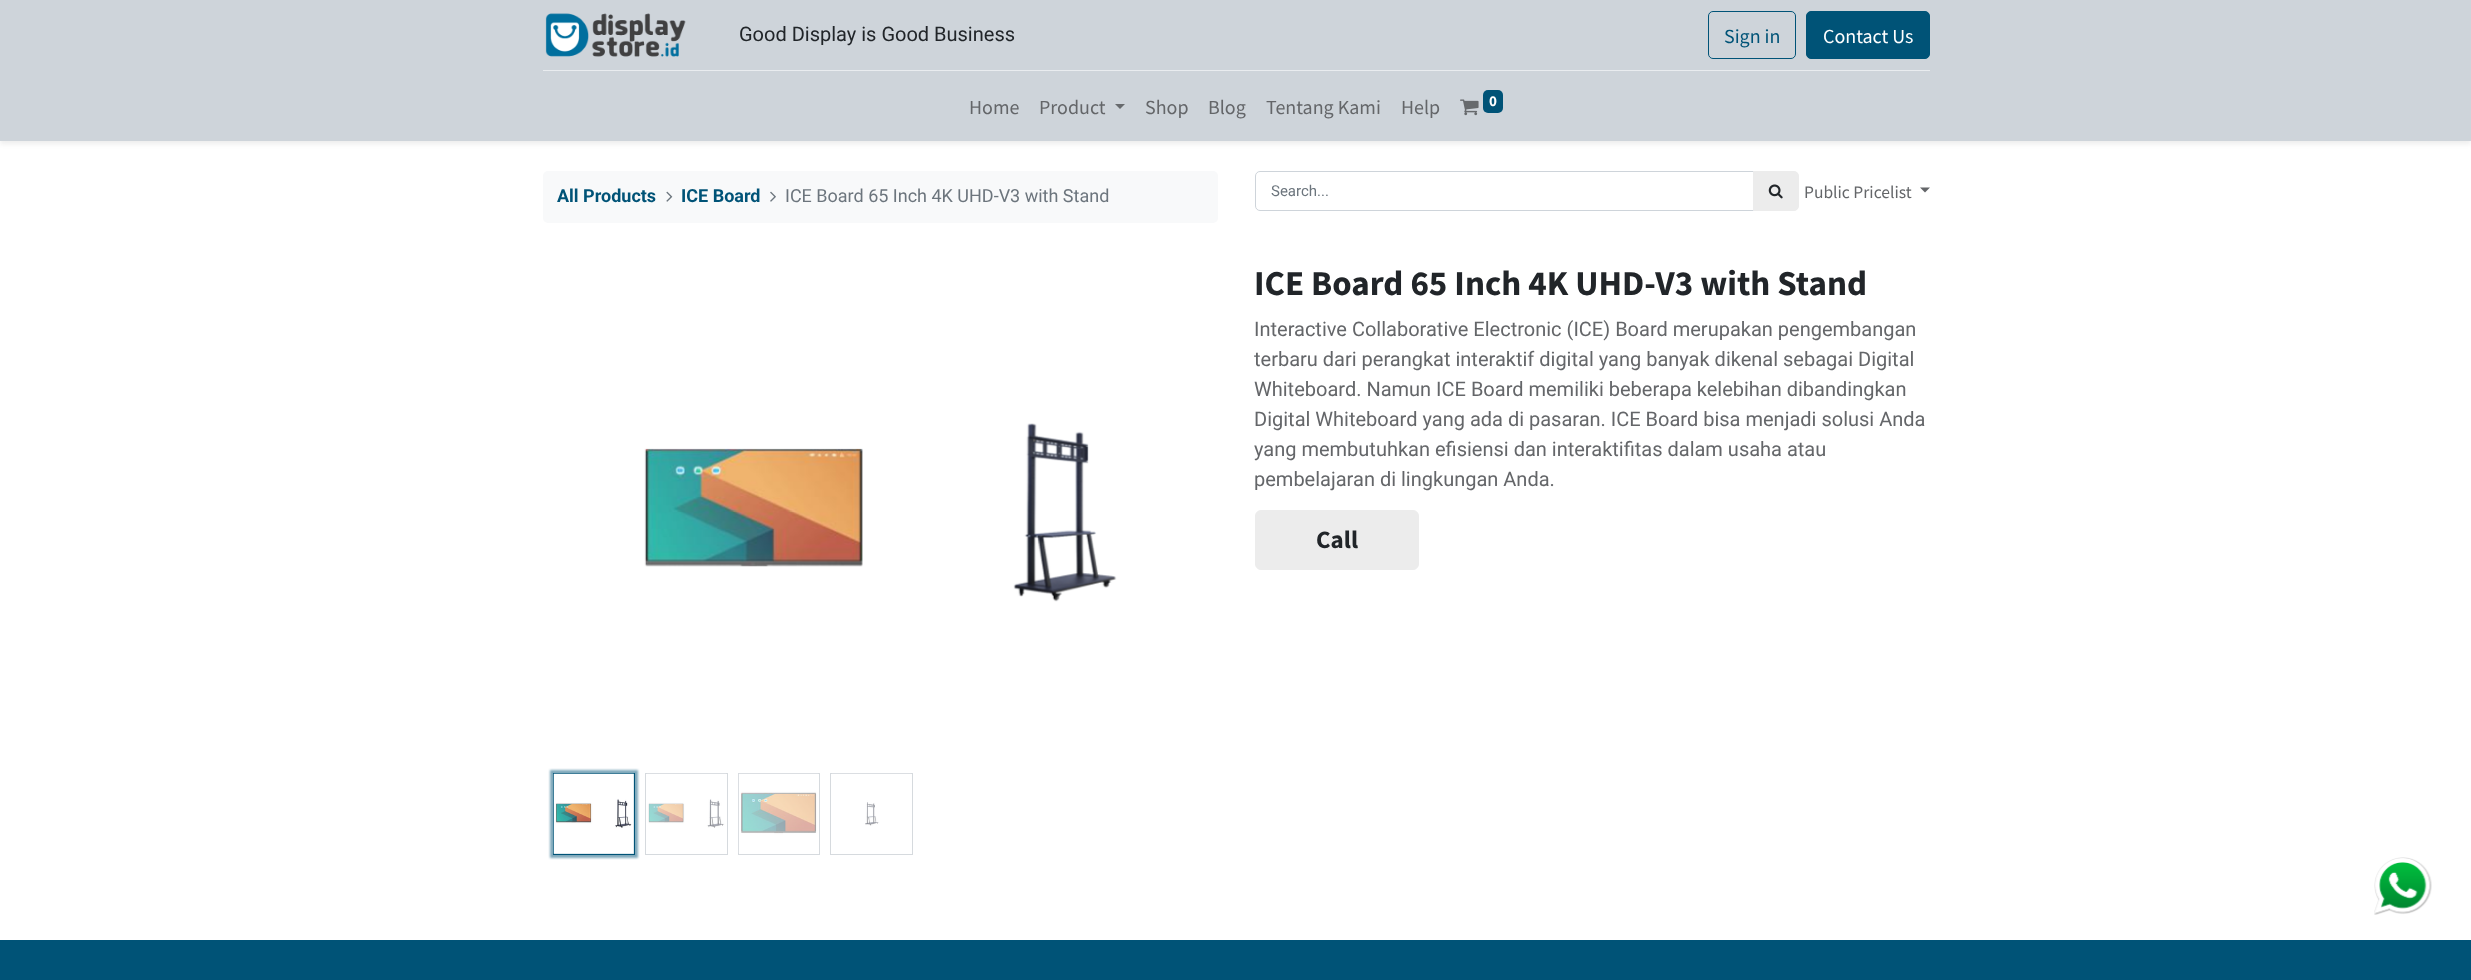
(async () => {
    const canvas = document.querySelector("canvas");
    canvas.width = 2471;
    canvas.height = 980;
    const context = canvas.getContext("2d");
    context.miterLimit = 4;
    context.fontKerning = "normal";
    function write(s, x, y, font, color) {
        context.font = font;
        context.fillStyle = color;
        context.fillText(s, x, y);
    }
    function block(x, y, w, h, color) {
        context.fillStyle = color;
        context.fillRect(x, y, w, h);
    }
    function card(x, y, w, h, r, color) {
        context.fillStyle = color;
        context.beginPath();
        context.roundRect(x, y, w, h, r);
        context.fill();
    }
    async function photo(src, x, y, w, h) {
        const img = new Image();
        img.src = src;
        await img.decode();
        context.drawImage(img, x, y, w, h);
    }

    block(0, 0, 2471, 980, "rgb(255, 255, 255)");
    context.fillStyle = "rgba(0, 0, 0, 0.07)";
    context.filter = "blur(2.5px)";
    context.beginPath();
    context.rect(0, 3, 2471, 141);
    context.fill();
    context.filter = "none";
    block(0, 0, 2471, 141, "rgb(206, 212, 218)");
    await photo("media/1.png", 545, 13, 141, 44);
    write("Good Display is Good Business", 739, 41, "20px Roboto", "rgb(33, 37, 41)");
    context.beginPath();
    context.roundRect(1708.5, 11.5, 87, 47, 4.5);
    context.strokeStyle = "rgb(0, 83, 119)";
    context.stroke();
    write("Sign in", 1724, 43, "20px Source Sans Pro", "rgb(0, 83, 119)");
    context.beginPath();
    context.roundRect(1806.5, 11.5, 123, 47, 4.5);
    context.fill();
    context.stroke();
    write("Contact Us", 1823, 43, "20px Source Sans Pro", "rgb(255, 255, 255)");
    block(543, 70, 1387, 1, "rgb(233, 236, 239)");
    write("Home", 969, 114, "20px Source Sans Pro", "rgb(100, 102, 105)");
    write("Product", 1039, 114, "20px Source Sans Pro", "rgb(100, 102, 105)");
    context.fillStyle = "rgb(103, 106, 109)";
    context.beginPath();
    context.moveTo(1115, 104);
    context.lineTo(1125, 104);
    context.lineTo(1120, 109);
    context.closePath();
    context.fill();
    write("Shop", 1145, 114, "20px Source Sans Pro", "rgb(100, 102, 105)");
    write("Blog", 1208, 114, "20px Source Sans Pro", "rgb(100, 102, 105)");
    write("Tentang Kami", 1266, 114, "20px Source Sans Pro", "rgb(100, 102, 105)");
    write("Help", 1401, 114, "20px Source Sans Pro", "rgb(100, 102, 105)");
    await photo("media/2.png", 1460, 99, 19, 17);
    card(1483, 90, 20, 23, 5, "rgb(0, 83, 119)");
    write("0", 1489, 106, "bold 15px Source Sans Pro", "rgb(255, 255, 255)");
    card(543, 171, 675, 52, 5, "rgb(248, 249, 250)");
    write("All Products", 557, 202, "bold 18px Roboto", "rgb(0, 83, 119)");
    await photo("media/3.png", 666, 191, 7, 11);
    write("ICE Board", 681, 202, "bold 18px Roboto", "rgb(0, 83, 119)");
    await photo("media/4.png", 770, 191, 6, 11);
    write("ICE Board 65 Inch 4K UHD-V3 with Stand", 785, 202, "18px Roboto", "rgb(108, 117, 125)");
    context.beginPath();
    context.roundRect(1255.5, 171.5, 498, 39, [4.5, 0, 0, 4.5]);
    context.strokeStyle = "rgb(206, 212, 218)";
    context.stroke();
    write("Search...", 1271, 196, "15px Roboto", "rgb(108, 117, 125)");
    context.fillStyle = "rgb(236, 236, 236)";
    context.beginPath();
    context.roundRect(1753.5, 171.5, 45, 39, [0, 4.5, 4.5, 0]);
    context.fill();
    context.strokeStyle = "rgb(236, 236, 236)";
    context.stroke();
    await photo("media/5.png", 1768, 184, 15, 15);
    write("Public Pricelist", 1804, 198, "17.5px Source Sans Pro", "rgb(100, 102, 105)");
    context.beginPath();
    context.moveTo(1920, 187.5);
    context.lineTo(1930, 187.5);
    context.lineTo(1925, 192.5);
    context.closePath();
    context.fill();
    await photo("media/6.png", 644, 423, 473, 179);
    context.fillStyle = "rgba(0, 83, 119, 0.5)";
    context.filter = "blur(1px)";
    context.beginPath();
    context.rect(550, 770, 88, 88);
    context.fill();
    context.filter = "none";
    context.strokeStyle = "rgb(0, 83, 119)";
    context.strokeRect(553.5, 773.5, 81, 81);
    await photo("media/7.png", 553, 773, 81, 81);
    context.strokeStyle = "rgb(214, 218, 222)";
    context.strokeRect(645.5, 773.5, 82, 81);
    await photo("media/8.png", 647, 773, 79, 55);
    context.strokeRect(738.5, 773.5, 81, 81);
    await photo("media/9.png", 738, 773, 80, 80);
    context.strokeRect(830.5, 773.5, 82, 81);
    await photo("media/10.png", 832, 773, 79, 53);
    write("ICE Board 65 Inch 4K UHD-V3 with Stand", 1254, 295, "bold 35px Source Sans Pro", "rgb(33, 37, 41)");
    write("Interactive Collaborative Electronic (ICE) Board merupakan pengembangan", 1254, 336, "20px Roboto", "rgb(100, 102, 105)");
    write("terbaru dari perangkat interaktif digital yang banyak dikenal sebagai Digital", 1254, 366, "20px Roboto", "rgb(100, 102, 105)");
    write("Whiteboard. Namun ICE Board memiliki beberapa kelebihan dibandingkan", 1254, 396, "20px Roboto", "rgb(100, 102, 105)");
    write("Digital Whiteboard yang ada di pasaran. ICE Board bisa menjadi solusi Anda", 1254, 426, "20px Roboto", "rgb(100, 102, 105)");
    write("yang membutuhkan efisiensi dan interaktifitas dalam usaha atau", 1254, 456, "20px Roboto", "rgb(100, 102, 105)");
    write("pembelajaran di lingkungan Anda.", 1254, 486, "20px Roboto", "rgb(100, 102, 105)");
    context.fillStyle = "rgb(236, 236, 236)";
    context.beginPath();
    context.roundRect(1255.5, 510.5, 163, 59, 5.5);
    context.fill();
    context.strokeStyle = "rgb(236, 236, 236)";
    context.stroke();
    write("Call", 1316, 548, "bold 25px Source Sans Pro", "rgb(33, 37, 41)");
    block(0, 940, 2471, 40, "rgb(0, 83, 119)");
    await photo("media/11.png", 2374, 857, 58, 58);
})();
